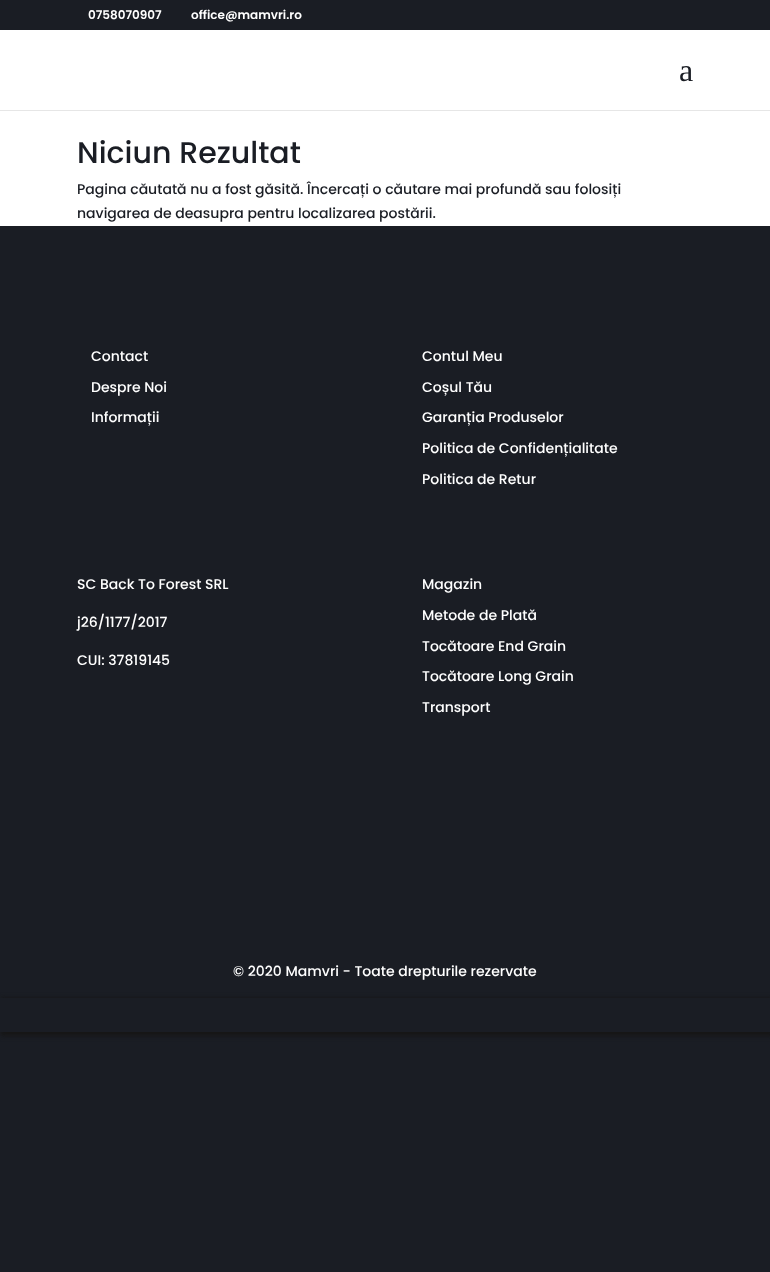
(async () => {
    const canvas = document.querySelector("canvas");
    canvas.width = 770;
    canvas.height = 1272;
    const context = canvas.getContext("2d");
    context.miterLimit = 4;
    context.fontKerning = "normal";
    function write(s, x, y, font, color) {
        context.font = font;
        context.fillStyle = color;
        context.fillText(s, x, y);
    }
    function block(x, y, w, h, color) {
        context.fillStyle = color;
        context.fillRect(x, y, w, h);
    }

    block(0, 0, 770, 1272, "rgb(26, 29, 36)");
    write("0758070907", 88, 19, "600 12px Poppins", "rgb(255, 255, 255)");
    write("office@mamvri.ro", 191, 19, "600 12px Poppins", "rgb(255, 255, 255)");
    block(0, 110, 770, 1, "rgb(230, 230, 230)");
    block(0, 30, 770, 80, "rgb(255, 255, 255)");
    write("a", 679, 81, "32px Liberation Serif", "rgb(26, 29, 36)");
    block(0, 111, 770, 115, "rgb(255, 255, 255)");
    write("Niciun Rezultat", 77, 163, "500 30px Poppins", "rgb(26, 29, 36)");
    write("Pagina căutată nu a fost găsită. Încercați o căutare mai profundă sau folosiți", 77, 194, "500 14px Poppins", "rgb(26, 29, 36)");
    write("navigarea de deasupra pentru localizarea postării.", 77, 218, "500 14px Poppins", "rgb(26, 29, 36)");
    write("Contact", 91, 361, "500 14px Poppins", "rgb(255, 255, 255)");
    write("Despre Noi", 91, 392, "500 14px Poppins", "rgb(255, 255, 255)");
    write("Informații", 91, 422, "500 14px Poppins", "rgb(255, 255, 255)");
    write("Contul Meu", 422, 361, "500 14px Poppins", "rgb(255, 255, 255)");
    write("Coșul Tău", 422, 392, "500 14px Poppins", "rgb(255, 255, 255)");
    write("Garanția Produselor", 422, 422, "500 14px Poppins", "rgb(255, 255, 255)");
    write("Politica de Confidențialitate", 422, 453, "500 14px Poppins", "rgb(255, 255, 255)");
    write("Politica de Retur", 422, 484, "500 14px Poppins", "rgb(255, 255, 255)");
    write("SC Back To Forest SRL", 77, 589, "500 14px Poppins", "rgb(255, 255, 255)");
    write("j26/1177/2017", 77, 627, "500 14px Poppins", "rgb(255, 255, 255)");
    write("CUI: 37819145", 77, 665, "500 14px Poppins", "rgb(255, 255, 255)");
    write("Magazin", 422, 589, "500 14px Poppins", "rgb(255, 255, 255)");
    write("Metode de Plată", 422, 620, "500 14px Poppins", "rgb(255, 255, 255)");
    write("Tocătoare End Grain", 422, 651, "500 14px Poppins", "rgb(255, 255, 255)");
    write("Tocătoare Long Grain", 422, 681, "500 14px Poppins", "rgb(255, 255, 255)");
    write("Transport", 422, 712, "500 14px Poppins", "rgb(255, 255, 255)");
    write("© 2020 Mamvri - Toate drepturile rezervate", 233, 976, "500 14px Poppins", "rgb(255, 255, 255)");
    context.save();
    context.beginPath();
    context.moveTo(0, 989);
    context.lineTo(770, 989);
    context.lineTo(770, 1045);
    context.lineTo(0, 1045);
    context.closePath();
    context.moveTo(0, 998);
    context.lineTo(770, 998);
    context.lineTo(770, 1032);
    context.lineTo(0, 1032);
    context.closePath();
    context.clip("evenodd");
    context.fillStyle = "rgb(22, 22, 22)";
    context.filter = "blur(2.5px)";
    context.beginPath();
    context.rect(0, 998, 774, 38);
    context.fill();
    context.filter = "none";
    context.restore();
})();
